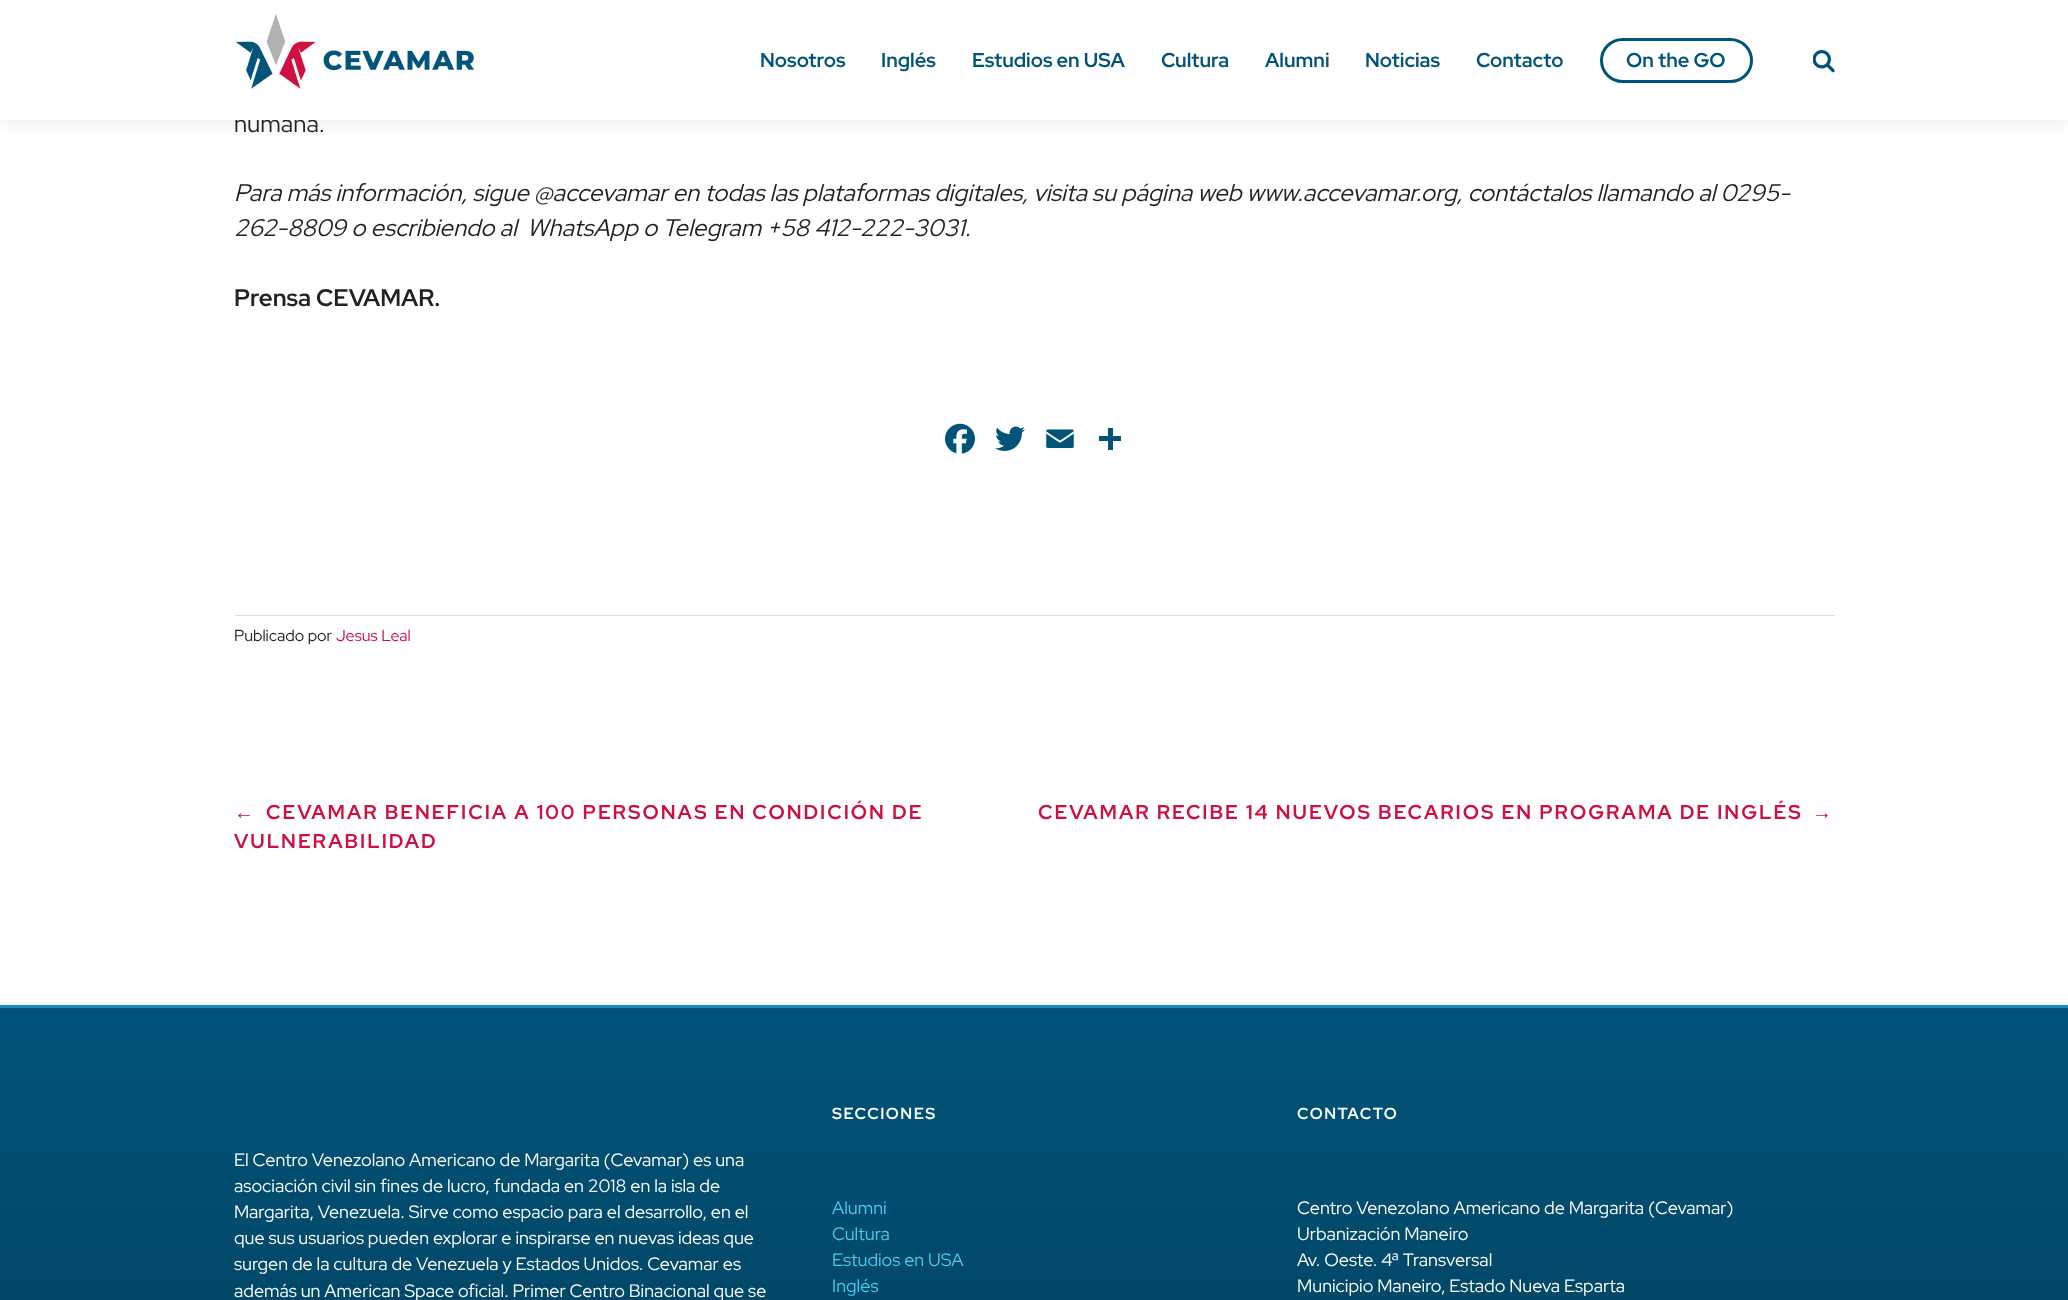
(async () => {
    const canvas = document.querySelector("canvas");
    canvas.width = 2068;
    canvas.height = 1300;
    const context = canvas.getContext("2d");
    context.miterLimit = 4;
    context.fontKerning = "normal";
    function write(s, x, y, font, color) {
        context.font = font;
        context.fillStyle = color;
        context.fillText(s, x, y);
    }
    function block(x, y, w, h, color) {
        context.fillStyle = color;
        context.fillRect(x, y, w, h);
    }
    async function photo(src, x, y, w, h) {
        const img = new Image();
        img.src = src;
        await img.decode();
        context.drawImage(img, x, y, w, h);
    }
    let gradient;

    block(0, 0, 2068, 1300, "rgb(255, 255, 255)");
    context.fillStyle = "rgba(0, 0, 0, 0.1)";
    context.filter = "blur(10px)";
    context.beginPath();
    context.rect(0, 0, 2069, 120);
    context.fill();
    context.filter = "none";
    write("humana.", 234, 132, "24px Red Hat Display", "rgb(34, 34, 34)");
    block(0, 0, 2068, 120, "rgb(255, 255, 255)");
    await photo("media/1.png", 236, 14, 238, 75);
    write("Nosotros", 760, 67, "bold 20px Red Hat Display", "rgb(0, 84, 122)");
    write("Inglés", 881, 67, "bold 20px Red Hat Display", "rgb(0, 84, 122)");
    write("Estudios en USA", 972, 67, "bold 20px Red Hat Display", "rgb(0, 84, 122)");
    write("Cultura", 1161, 67, "bold 20px Red Hat Display", "rgb(0, 84, 122)");
    write("Alumni", 1265, 67, "bold 20px Red Hat Display", "rgb(0, 84, 122)");
    write("Noticias", 1365, 67, "bold 20px Red Hat Display", "rgb(0, 84, 122)");
    write("Contacto", 1476, 67, "bold 20px Red Hat Display", "rgb(0, 84, 122)");
    context.beginPath();
    context.roundRect(1601.5, 39.5, 150, 42, 21);
    context.strokeStyle = "rgb(0, 84, 122)";
    context.lineWidth = 3;
    context.stroke();
    write("On the GO", 1626, 67, "bold 20px Red Hat Display", "rgb(0, 84, 122)");
    await photo("media/2.png", 1813, 50, 22, 23);
    write("Para más información, sigue @accevamar en todas las plataformas digitales, visita su página web www.accevamar.org, contáctalos llamando al 0295-", 234, 201, "italic 24px Red Hat Display", "rgb(34, 34, 34)");
    write("262-8809 o escribiendo al  WhatsApp o Telegram +58 412-222-3031.", 234, 236, "italic 24px Red Hat Display", "rgb(34, 34, 34)");
    write("Prensa CEVAMAR.", 234, 306, "bold 24px Red Hat Display", "rgb(34, 34, 34)");
    await photo("media/3.png", 945, 423, 30, 31);
    await photo("media/4.png", 995, 426, 30, 25);
    await photo("media/5.png", 1046, 429, 28, 19);
    block(1108, 428, 5, 22, "rgb(0, 84, 122)");
    block(1099, 436, 22, 5, "rgb(0, 84, 122)");
    block(235, 615, 1600, 1, "rgb(221, 221, 221)");
    write("Publicado por", 234, 641, "16px Red Hat Display", "rgb(34, 34, 34)");
    write("Jesus Leal", 336, 641, "16px Red Hat Display", "rgb(206, 15, 64)");
    context.letterSpacing = "2px";
    write("←", 234, 819, "bold 20px Liberation Sans", "rgb(206, 15, 64)");
    write("CEVAMAR BENEFICIA A 100 PERSONAS EN CONDICIÓN DE", 266, 819, "bold 20px Red Hat Display", "rgb(206, 15, 64)");
    write("VULNERABILIDAD", 234, 848, "bold 20px Red Hat Display", "rgb(206, 15, 64)");
    write("CEVAMAR RECIBE 14 NUEVOS BECARIOS EN PROGRAMA DE INGLÉS", 1038, 819, "bold 20px Red Hat Display", "rgb(206, 15, 64)");
    write("→", 1812, 819, "bold 20px Liberation Sans", "rgb(206, 15, 64)");
    gradient = context.createLinearGradient(1034, 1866, 1034, 1008);
    gradient.addColorStop(0, "rgb(3, 49, 70)");
    gradient.addColorStop(1, "rgb(0, 84, 122)");
    context.fillStyle = gradient;
    context.fillRect(0, 1008, 2068, 292);
    block(0, 1005, 2068, 3, "rgb(18, 146, 183)");
    context.letterSpacing = "0px";
    write("El Centro Venezolano Americano de Margarita (Cevamar) es una", 234, 1166, "18px Red Hat Display", "rgb(255, 255, 255)");
    write("asociación civil sin fines de lucro, fundada en 2018 en la isla de", 234, 1192, "18px Red Hat Display", "rgb(255, 255, 255)");
    write("Margarita, Venezuela. Sirve como espacio para el desarrollo, en el", 234, 1218, "18px Red Hat Display", "rgb(255, 255, 255)");
    write("que sus usuarios pueden explorar e inspirarse en nuevas ideas que", 234, 1244, "18px Red Hat Display", "rgb(255, 255, 255)");
    write("surgen de la cultura de Venezuela y Estados Unidos. Cevamar es", 234, 1270, "18px Red Hat Display", "rgb(255, 255, 255)");
    write("además un American Space oficial. Primer Centro Binacional que se", 234, 1297, "18px Red Hat Display", "rgb(255, 255, 255)");
    context.letterSpacing = "1.5px";
    write("SECCIONES", 832, 1119, "bold 16px Red Hat Display", "rgb(255, 255, 255)");
    context.letterSpacing = "0px";
    write("Alumni", 832, 1214, "18px Red Hat Display", "rgb(76, 201, 237)");
    write("Cultura", 832, 1240, "18px Red Hat Display", "rgb(76, 201, 237)");
    write("Estudios en USA", 832, 1266, "18px Red Hat Display", "rgb(76, 201, 237)");
    write("Inglés", 832, 1292, "18px Red Hat Display", "rgb(76, 201, 237)");
    context.letterSpacing = "1.5px";
    write("CONTACTO", 1297, 1119, "bold 16px Red Hat Display", "rgb(255, 255, 255)");
    context.letterSpacing = "0px";
    write("Centro Venezolano Americano de Margarita (Cevamar)", 1297, 1214, "18px Red Hat Display", "rgb(255, 255, 255)");
    write("Urbanización Maneiro", 1297, 1240, "18px Red Hat Display", "rgb(255, 255, 255)");
    write("Av. Oeste. 4ª Transversal", 1297, 1266, "18px Red Hat Display", "rgb(255, 255, 255)");
    write("Municipio Maneiro, Estado Nueva Esparta", 1297, 1292, "18px Red Hat Display", "rgb(255, 255, 255)");
})();
